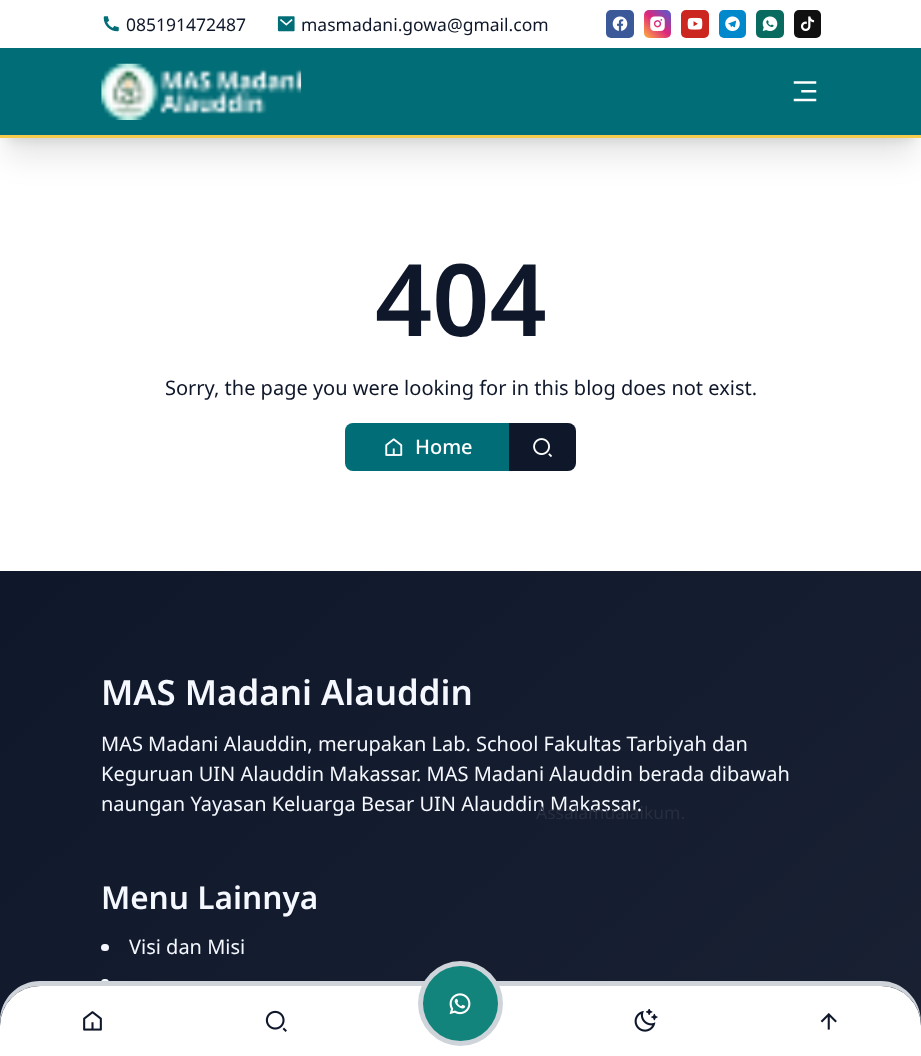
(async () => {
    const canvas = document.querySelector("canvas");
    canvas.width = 921;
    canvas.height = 1056;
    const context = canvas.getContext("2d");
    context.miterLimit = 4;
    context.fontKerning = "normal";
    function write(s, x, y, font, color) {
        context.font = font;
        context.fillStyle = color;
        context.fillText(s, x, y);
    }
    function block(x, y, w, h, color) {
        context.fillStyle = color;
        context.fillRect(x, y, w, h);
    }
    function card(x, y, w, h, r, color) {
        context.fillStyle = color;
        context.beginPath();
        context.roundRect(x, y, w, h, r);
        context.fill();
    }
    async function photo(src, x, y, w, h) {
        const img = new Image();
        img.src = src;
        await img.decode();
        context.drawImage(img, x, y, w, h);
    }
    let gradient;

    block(0, 0, 921, 1056, "rgb(255, 255, 255)");
    await photo("media/1.png", 103, 16, 16, 16);
    write("085191472487", 126, 31, "17.5px Noto Sans", "rgb(15, 23, 42)");
    await photo("media/2.png", 277, 16, 18, 16);
    write("masmadani.gowa@gmail.com", 301, 31, "17.5px Noto Sans", "rgb(15, 23, 42)");
    card(606, 10, 28, 28, 5, "rgb(59, 89, 152)");
    await photo("media/3.png", 612, 16, 16, 15);
    gradient = context.createLinearGradient(644, 38, 671, 10);
    gradient.addColorStop(0, "rgb(255, 177, 61)");
    gradient.addColorStop(0.5, "rgb(221, 39, 123)");
    gradient.addColorStop(1, "rgb(77, 94, 212)");
    context.fillStyle = gradient;
    context.beginPath();
    context.roundRect(644, 10, 27, 28, 5);
    context.fill();
    await photo("media/4.png", 650, 16, 15, 16);
    card(681, 10, 28, 28, 5, "rgb(204, 38, 32)");
    await photo("media/5.png", 687, 17, 16, 13);
    card(719, 10, 27, 28, 5, "rgb(0, 136, 204)");
    await photo("media/6.png", 725, 16, 15, 15);
    card(756, 10, 28, 28, 5, "rgb(9, 107, 96)");
    await photo("media/7.png", 762, 16, 16, 15);
    card(794, 10, 27, 28, 5, "rgb(16, 16, 16)");
    await photo("media/8.png", 800, 16, 15, 15);
    context.fillStyle = "rgba(0, 0, 0, 0.1)";
    context.filter = "blur(6px)";
    context.beginPath();
    context.rect(8, 65, 906, 75);
    context.fill();
    context.filter = "none";
    context.filter = "blur(15.5px)";
    context.beginPath();
    context.rect(6, 79, 909, 77);
    context.fill();
    context.filter = "none";
    block(0, 48, 921, 87, "rgb(0, 109, 119)");
    block(0, 135, 921, 3, "rgb(247, 203, 77)");
    await photo("media/9.png", 101, 63, 201, 57);
    await photo("media/10.png", 793, 81, 24, 21);
    write("404", 375, 336, "600 100px Noto Sans", "rgb(15, 23, 42)");
    write("Sorry, the page you were looking for in this blog does not exist.", 165, 395, "20px Noto Sans", "rgb(15, 23, 42)");
    context.fillStyle = "rgb(0, 109, 119)";
    context.beginPath();
    context.roundRect(345, 423, 165, 48, [8, 0, 0, 8]);
    context.fill();
    await photo("media/11.png", 385, 438, 18, 18);
    write("Home", 415, 454, "500 20px Noto Sans", "rgb(255, 255, 255)");
    context.fillStyle = "rgb(15, 23, 42)";
    context.beginPath();
    context.roundRect(509, 423, 67, 48, [0, 8, 8, 0]);
    context.fill();
    await photo("media/12.png", 533, 438, 20, 20);
    gradient = context.createLinearGradient(53, 524, 869, 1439);
    gradient.addColorStop(0, "rgb(15, 23, 42)");
    gradient.addColorStop(1, "rgb(27, 35, 53)");
    context.fillStyle = gradient;
    context.fillRect(0, 571, 921, 455);
    write("MAS Madani Alauddin", 101, 705, "600 34.75px Noto Sans", "rgb(245, 248, 255)");
    write("MAS Madani Alauddin, merupakan Lab. School Fakultas Tarbiyah dan", 101, 751, "20px Noto Sans", "rgb(245, 248, 255)");
    write("Keguruan UIN Alauddin Makassar. MAS Madani Alauddin berada dibawah", 101, 781, "20px Noto Sans", "rgb(245, 248, 255)");
    write("naungan Yayasan Keluarga Besar UIN Alauddin Makassar.", 101, 811, "20px Noto Sans", "rgb(245, 248, 255)");
    write("Menu Lainnya", 101, 909, "600 31.5px Noto Sans", "rgb(245, 248, 255)");
    card(101, 944, 8, 7, 3.5, "rgb(245, 248, 255)");
    write("Visi dan Misi", 129, 954, "20px Noto Sans", "rgb(245, 248, 255)");
    card(101, 979, 8, 7, 3.5, "rgb(245, 248, 255)");
    write("Assalamualaikum.", 536, 819, "17.5px Noto Sans", "rgb(38, 46, 63)");
    context.fillStyle = "rgb(206, 212, 218)";
    context.beginPath();
    context.moveTo(40, 981);
    context.bezierCurveTo(18, 981, 0, 999, 0, 1021);
    context.lineTo(0, 1026);
    context.bezierCurveTo(0, 1004, 18, 986, 40, 986);
    context.lineTo(881, 986);
    context.bezierCurveTo(902, 986, 919, 1002, 921, 1022);
    context.bezierCurveTo(921, 1000, 903, 981, 881, 981);
    context.closePath();
    context.fill();
    context.fillStyle = "rgb(255, 255, 255)";
    context.beginPath();
    context.roundRect(0, 986, 921, 70, [40, 40, 0, 0]);
    context.fill();
    await photo("media/13.png", 83, 1011, 19, 20);
    await photo("media/14.png", 265, 1010, 22, 22);
    context.fillStyle = "rgb(206, 212, 218)";
    context.beginPath();
    context.arc(460.5, 1003.5, 42.5, 0, Math.PI * 2);
    context.fill();
    context.fillStyle = "rgb(19, 132, 123)";
    context.beginPath();
    context.arc(460.5, 1003.5, 37.5, 0, Math.PI * 2);
    context.fill();
    await photo("media/15.png", 449, 993, 22, 22);
    await photo("media/16.png", 634, 1009, 24, 23);
    await photo("media/17.png", 820, 1013, 17, 17);
})();
